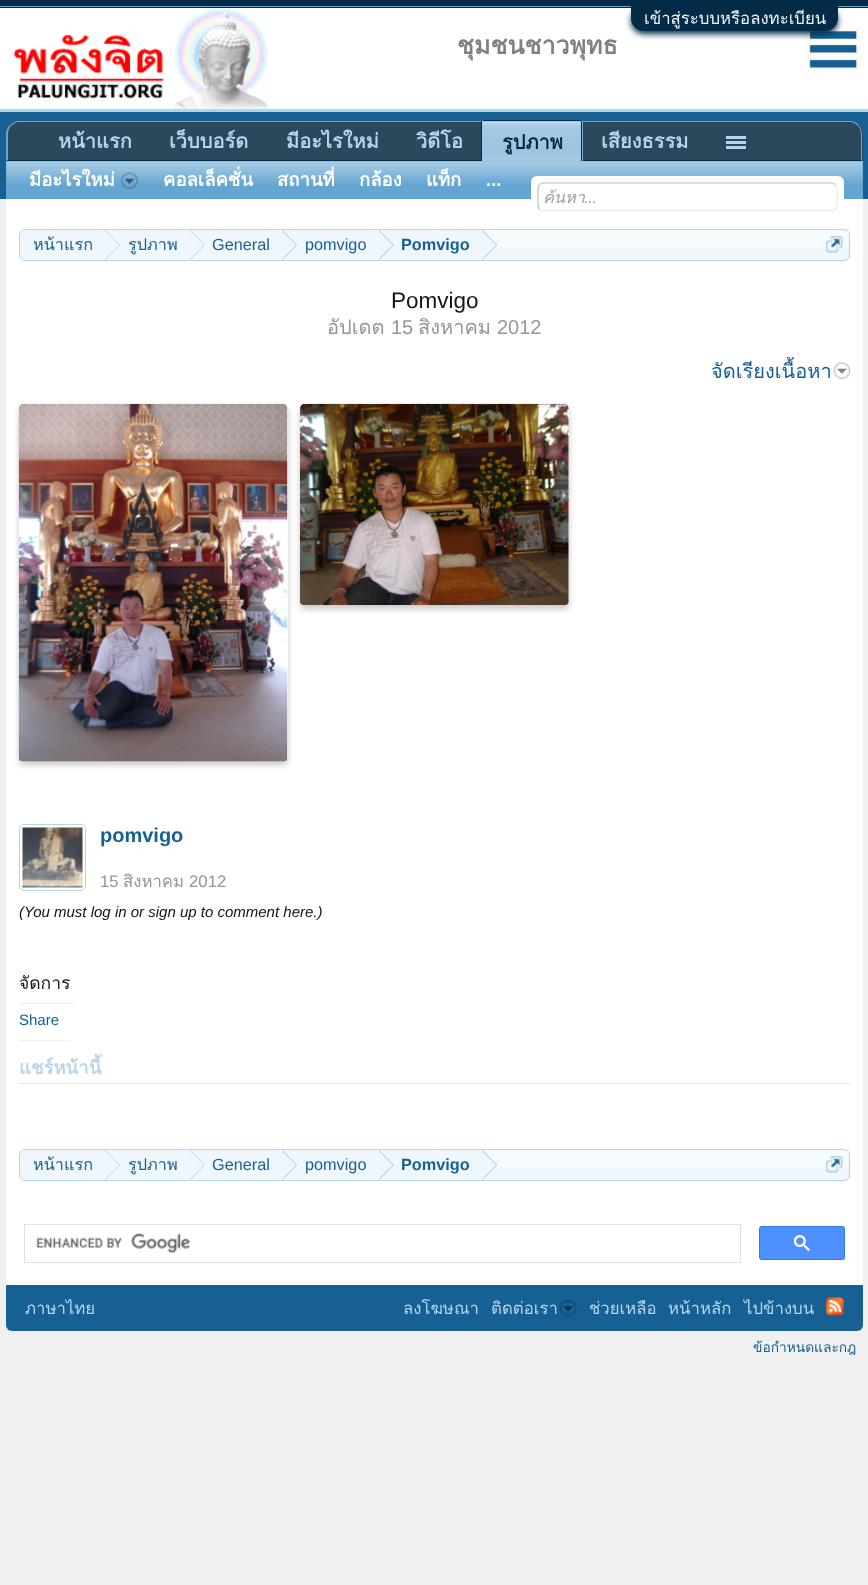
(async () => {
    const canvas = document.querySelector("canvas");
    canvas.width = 868;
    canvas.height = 1585;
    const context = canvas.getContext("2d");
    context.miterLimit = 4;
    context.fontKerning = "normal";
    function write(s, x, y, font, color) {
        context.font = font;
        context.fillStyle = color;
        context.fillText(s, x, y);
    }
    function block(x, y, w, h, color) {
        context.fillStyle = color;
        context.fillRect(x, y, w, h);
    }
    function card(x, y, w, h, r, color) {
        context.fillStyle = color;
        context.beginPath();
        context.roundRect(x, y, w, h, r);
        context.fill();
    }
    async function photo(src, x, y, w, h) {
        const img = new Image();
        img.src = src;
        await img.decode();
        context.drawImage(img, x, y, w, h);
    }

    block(0, 0, 868, 1585, "rgb(240, 240, 240)");
    block(0, 0, 868, 8, "rgb(3, 42, 70)");
    block(0, 6, 868, 1, "rgb(101, 165, 209)");
    block(0, 8, 868, 101, "rgb(255, 255, 255)");
    await photo("media/3.png", 804, 26, 59, 43);
    context.fillStyle = "rgb(3, 42, 70)";
    context.filter = "blur(3px)";
    context.beginPath();
    context.roundRect(631, 8, 207, 26, 13);
    context.fill();
    context.filter = "none";
    context.beginPath();
    context.roundRect(631, 5, 207, 26, [0, 0, 13, 13]);
    context.fill();
    write("เข้าสู่ระบบหรือลงทะเบียน", 644, 24, "16.75px Loma", "rgb(240, 247, 252)");
    block(0, 112, 868, 87, "rgb(23, 96, 147)");
    block(0, 109, 868, 3, "rgb(172, 213, 241)");
    await photo("media/1.png", 13, 34, 151, 65);
    await photo("media/2.png", 174, 8, 96, 101);
    write("ชุมชนชาวพุทธ", 457, 54, "bold 25px Loma", "rgb(128, 128, 128)");
    context.fillStyle = "rgb(43, 72, 92)";
    context.beginPath();
    context.roundRect(6, 121, 857, 40, [13, 13, 0, 0]);
    context.fill();
    context.fillStyle = "rgb(101, 165, 209)";
    context.beginPath();
    context.moveTo(19, 122);
    context.bezierCurveTo(16, 122, 13, 124, 11, 126);
    context.lineTo(10, 125);
    context.bezierCurveTo(12, 123, 14, 122, 17, 121);
    context.lineTo(852, 121);
    context.bezierCurveTo(855, 122, 857, 123, 859, 125);
    context.lineTo(858, 126);
    context.bezierCurveTo(856, 124, 853, 122, 850, 122);
    context.closePath();
    context.fill();
    context.beginPath();
    context.moveTo(858.5, 125);
    context.bezierCurveTo(861, 127.5, 862, 130.5, 862, 134);
    context.lineTo(862, 161);
    context.lineTo(861, 160);
    context.lineTo(861, 134);
    context.bezierCurveTo(861, 131, 860, 128, 858, 126);
    context.closePath();
    context.fill();
    context.fillStyle = "rgb(3, 42, 70)";
    context.beginPath();
    context.moveTo(862, 161);
    context.lineTo(6, 161);
    context.lineTo(8, 160);
    context.lineTo(861, 160);
    context.closePath();
    context.fill();
    context.fillStyle = "rgb(101, 165, 209)";
    context.beginPath();
    context.moveTo(6, 131.5);
    context.bezierCurveTo(7, 129, 8, 126.5, 10, 125);
    context.lineTo(11, 126);
    context.bezierCurveTo(9, 128, 8, 131, 8, 134);
    context.lineTo(8, 159.5);
    context.lineTo(6, 161);
    context.closePath();
    context.fill();
    write("หน้าแรก", 58, 148, "bold 20px Loma", "rgb(180, 213, 236)");
    write("เว็บบอร์ด", 169, 148, "bold 20px Loma", "rgb(180, 213, 236)");
    write("มีอะไรใหม่", 286, 148, "bold 20px Loma", "rgb(180, 213, 236)");
    write("วิดีโอ", 416, 148, "bold 20px Loma", "rgb(180, 213, 236)");
    write("เสียงธรรม", 601, 148, "bold 20px Loma", "rgb(180, 213, 236)");
    context.fillStyle = "rgb(101, 165, 209)";
    context.beginPath();
    context.roundRect(481, 120, 102, 41, [2.5, 2.5, 0, 0]);
    context.fill();
    await photo("media/4.png", 482, 121, 101, 40);
    block(483, 120, 98, 1, "rgb(3, 42, 70)");
    block(581, 121, 1, 40, "rgb(3, 42, 70)");
    block(481, 121, 1, 40, "rgb(3, 42, 70)");
    write("รูปภาพ", 502, 149, "bold 20px Loma", "rgb(3, 42, 70)");
    block(6, 161, 857, 38, "rgb(101, 165, 209)");
    await photo("media/5.png", 6, 161, 857, 24);
    write("มีอะไรใหม่", 29, 186, "bold 18.5px Loma", "rgb(255, 255, 255)");
    await photo("media/6.png", 121, 172, 17, 17);
    write("คอลเล็คชั่น", 163, 186, "bold 18.5px Loma", "rgb(255, 255, 255)");
    write("สถานที่", 277, 186, "bold 18.5px Loma", "rgb(255, 255, 255)");
    write("กล้อง", 359, 186, "bold 18.5px Loma", "rgb(255, 255, 255)");
    write("แท็ก", 426, 186, "bold 18.5px Loma", "rgb(255, 255, 255)");
    write("...", 486, 186, "bold 18.5px Liberation Sans", "rgb(255, 255, 255)");
    block(726, 136, 20, 3, "rgb(180, 213, 236)");
    block(726, 141, 20, 3, "rgb(180, 213, 236)");
    block(726, 146, 20, 3, "rgb(180, 213, 236)");
    block(6, 199, 857, 1086, "rgb(255, 255, 255)");
    card(531, 176, 313, 35, 6, "rgb(255, 255, 255)");
    context.beginPath();
    context.moveTo(835.5, 184.5);
    context.bezierCurveTo(838, 187, 837, 199.5, 837, 203);
    context.bezierCurveTo(837, 206.5, 837, 210.5, 832.5, 210.5);
    context.lineTo(542.5, 210.5);
    context.lineTo(539.5, 209.5);
    context.strokeStyle = "rgb(233, 233, 233)";
    context.lineWidth = 1.2;
    context.stroke();
    context.beginPath();
    context.moveTo(539.5, 209.5);
    context.bezierCurveTo(537, 206.5, 538, 194.5, 538, 190.5);
    context.bezierCurveTo(538, 187.5, 538, 183, 542.5, 183);
    context.lineTo(832.5, 183);
    context.lineTo(835.5, 184.5);
    context.strokeStyle = "rgb(192, 192, 192)";
    context.stroke();
    context.save();
    context.beginPath();
    context.rect(543, 184, 273, 26);
    context.clip();
    write("ค้นหา", 543, 203, "italic 16.25px Loma", "rgb(160, 160, 160)");
    context.restore();
    write("...", 584, 203, "italic 16.25px Carlito", "rgb(160, 160, 160)");
    card(19, 229, 831, 32, 6, "rgb(240, 247, 252)");
    await photo("media/7.png", 19, 230, 831, 19);
    context.beginPath();
    context.roundRect(19.5, 229.5, 830, 31, 5.5);
    context.strokeStyle = "rgb(180, 213, 236)";
    context.lineWidth = 1;
    context.stroke();
    context.save();
    context.beginPath();
    context.roundRect(20, 230, 829, 30, 5);
    context.clip();
    context.beginPath();
    context.roundRect(20, 230, 85, 31, [6, 0, 0, 6]);
    context.fill();
    context.restore();
    write("หน้าแรก", 33, 250, "16.25px Loma", "rgb(23, 96, 147)");
    block(105, 230, 378, 19, "rgb(240, 247, 252)");
    context.fillStyle = "rgb(180, 213, 236)";
    context.beginPath();
    context.moveTo(105, 260);
    context.lineTo(105, 230);
    context.lineTo(120, 245);
    context.closePath();
    context.fill();
    context.fillStyle = "rgb(240, 247, 252)";
    context.beginPath();
    context.moveTo(104, 260);
    context.lineTo(104, 230);
    context.lineTo(119, 245);
    context.closePath();
    context.fill();
    context.save();
    context.beginPath();
    context.rect(128, 230, 50, 30);
    context.clip();
    write("รูปภาพ", 128, 250, "16.25px Loma", "rgb(23, 96, 147)");
    context.restore();
    context.fillStyle = "rgb(180, 213, 236)";
    context.beginPath();
    context.moveTo(190, 260);
    context.lineTo(190, 230);
    context.lineTo(205, 245);
    context.closePath();
    context.fill();
    context.fillStyle = "rgb(240, 247, 252)";
    context.beginPath();
    context.moveTo(189, 260);
    context.lineTo(189, 230);
    context.lineTo(204, 245);
    context.closePath();
    context.fill();
    write("General", 212, 250, "16.25px Liberation Sans", "rgb(23, 96, 147)");
    context.fillStyle = "rgb(180, 213, 236)";
    context.beginPath();
    context.moveTo(282.5, 260);
    context.lineTo(282.5, 230);
    context.lineTo(297.5, 245);
    context.closePath();
    context.fill();
    context.fillStyle = "rgb(240, 247, 252)";
    context.beginPath();
    context.moveTo(281, 260);
    context.lineTo(281, 230);
    context.lineTo(296, 245);
    context.closePath();
    context.fill();
    write("pomvigo", 305, 250, "16.25px Liberation Sans", "rgb(23, 96, 147)");
    context.fillStyle = "rgb(180, 213, 236)";
    context.beginPath();
    context.moveTo(379, 260);
    context.lineTo(379, 230);
    context.lineTo(394, 245);
    context.closePath();
    context.fill();
    context.fillStyle = "rgb(240, 247, 252)";
    context.beginPath();
    context.moveTo(377.5, 260);
    context.lineTo(377.5, 230);
    context.lineTo(392.5, 245);
    context.closePath();
    context.fill();
    write("Pomvigo", 401, 250, "bold 16.25px Liberation Sans", "rgb(23, 96, 147)");
    context.fillStyle = "rgb(180, 213, 236)";
    context.beginPath();
    context.moveTo(482.5, 260);
    context.lineTo(482.5, 230);
    context.lineTo(497.5, 245);
    context.closePath();
    context.fill();
    context.fillStyle = "rgb(240, 247, 252)";
    context.beginPath();
    context.moveTo(481, 260);
    context.lineTo(481, 230);
    context.lineTo(496, 245);
    context.closePath();
    context.fill();
    await photo("media/8.png", 826, 236, 17, 17);
    write("Pomvigo", 391, 308, "22.5px Liberation Sans", "rgb(20, 20, 20)");
    write("อัปเดต", 327, 334, "20px Loma", "rgb(150, 150, 150)");
    write("15", 391, 334, "20px Liberation Sans", "rgb(150, 150, 150)");
    write("สิงหาคม", 418, 334, "20px Loma", "rgb(150, 150, 150)");
    write("2012", 497, 334, "20px Liberation Sans", "rgb(150, 150, 150)");
    write("จัดเรียงเนื้อหา", 711, 378, "20px Loma", "rgb(23, 96, 147)");
    await photo("media/9.png", 833, 362, 17, 17);
    context.fillStyle = "rgb(200, 200, 200)";
    context.filter = "blur(3px)";
    context.beginPath();
    context.roundRect(19, 408, 269, 357, 5);
    context.fill();
    context.filter = "none";
    context.fillStyle = "rgb(255, 255, 255)";
    context.beginPath();
    context.roundRect(19, 404, 269, 357, [5, 5, 4, 4]);
    context.fill();
    await photo("media/10.png", 18, 403, 270, 359);
    context.fillStyle = "rgb(200, 200, 200)";
    context.filter = "blur(3px)";
    context.beginPath();
    context.roundRect(300, 408, 269, 201, 5);
    context.fill();
    context.filter = "none";
    context.fillStyle = "rgb(255, 255, 255)";
    context.beginPath();
    context.roundRect(300, 404, 269, 201, [5, 5, 4, 4]);
    context.fill();
    await photo("media/11.png", 300, 403, 269, 202);
    await photo("media/12.png", 22, 827, 61, 61);
    context.beginPath();
    context.roundRect(19.5, 824.5, 66, 66, 4.5);
    context.stroke();
    write("pomvigo", 100, 842, "bold 20px Liberation Sans", "rgb(23, 96, 147)");
    write("15", 100, 887, "16.75px Liberation Sans", "rgb(150, 150, 150)");
    write("สิงหาคม", 123, 887, "16.75px Loma", "rgb(150, 150, 150)");
    write("2012", 189, 887, "16.75px Liberation Sans", "rgb(150, 150, 150)");
    write("(You must log in or sign up to comment here.)", 19, 917, "italic 15px Liberation Sans", "rgb(20, 20, 20)");
    block(19, 1003, 57, 1, "rgb(240, 240, 240)");
    context.save();
    context.beginPath();
    context.rect(19, 811, 831, 234);
    context.clip();
    write("จัดการ", 19, 989, "17.5px Loma", "rgb(20, 20, 20)");
    context.restore();
    block(19, 1040, 51, 1, "rgb(240, 240, 240)");
    write("Share", 19, 1025, "15px Liberation Sans", "rgb(23, 96, 147)");
    block(19, 1083, 831, 1, "rgb(215, 237, 252)");
    write("แชร์หน้านี้", 19, 1074, "bold 18.5px Loma", "rgb(180, 213, 236)");
    card(19, 1149, 831, 32, 6, "rgb(240, 247, 252)");
    await photo("media/7.png", 19, 1150, 831, 19);
    context.beginPath();
    context.roundRect(19.5, 1149.5, 830, 31, 5.5);
    context.stroke();
    context.save();
    context.beginPath();
    context.roundRect(20, 1150, 829, 30, 5);
    context.clip();
    context.beginPath();
    context.roundRect(20, 1150, 85, 31, [6, 0, 0, 6]);
    context.fill();
    context.restore();
    write("หน้าแรก", 33, 1170, "16.25px Loma", "rgb(23, 96, 147)");
    block(105, 1150, 378, 19, "rgb(240, 247, 252)");
    context.fillStyle = "rgb(180, 213, 236)";
    context.beginPath();
    context.moveTo(105, 1180);
    context.lineTo(105, 1150);
    context.lineTo(120, 1165);
    context.closePath();
    context.fill();
    context.fillStyle = "rgb(240, 247, 252)";
    context.beginPath();
    context.moveTo(104, 1180);
    context.lineTo(104, 1150);
    context.lineTo(119, 1165);
    context.closePath();
    context.fill();
    context.save();
    context.beginPath();
    context.rect(128, 1150, 50, 30);
    context.clip();
    write("รูปภาพ", 128, 1170, "16.25px Loma", "rgb(23, 96, 147)");
    context.restore();
    context.fillStyle = "rgb(180, 213, 236)";
    context.beginPath();
    context.moveTo(190, 1180);
    context.lineTo(190, 1150);
    context.lineTo(205, 1165);
    context.closePath();
    context.fill();
    context.fillStyle = "rgb(240, 247, 252)";
    context.beginPath();
    context.moveTo(189, 1180);
    context.lineTo(189, 1150);
    context.lineTo(204, 1165);
    context.closePath();
    context.fill();
    write("General", 212, 1170, "16.25px Liberation Sans", "rgb(23, 96, 147)");
    context.fillStyle = "rgb(180, 213, 236)";
    context.beginPath();
    context.moveTo(282.5, 1180);
    context.lineTo(282.5, 1150);
    context.lineTo(297.5, 1165);
    context.closePath();
    context.fill();
    context.fillStyle = "rgb(240, 247, 252)";
    context.beginPath();
    context.moveTo(281, 1180);
    context.lineTo(281, 1150);
    context.lineTo(296, 1165);
    context.closePath();
    context.fill();
    write("pomvigo", 305, 1170, "16.25px Liberation Sans", "rgb(23, 96, 147)");
    context.fillStyle = "rgb(180, 213, 236)";
    context.beginPath();
    context.moveTo(379, 1180);
    context.lineTo(379, 1150);
    context.lineTo(394, 1165);
    context.closePath();
    context.fill();
    context.fillStyle = "rgb(240, 247, 252)";
    context.beginPath();
    context.moveTo(377.5, 1180);
    context.lineTo(377.5, 1150);
    context.lineTo(392.5, 1165);
    context.closePath();
    context.fill();
    write("Pomvigo", 401, 1170, "bold 16.25px Liberation Sans", "rgb(23, 96, 147)");
    context.fillStyle = "rgb(180, 213, 236)";
    context.beginPath();
    context.moveTo(482.5, 1180);
    context.lineTo(482.5, 1150);
    context.lineTo(497.5, 1165);
    context.closePath();
    context.fill();
    context.fillStyle = "rgb(240, 247, 252)";
    context.beginPath();
    context.moveTo(481, 1180);
    context.lineTo(481, 1150);
    context.lineTo(496, 1165);
    context.closePath();
    context.fill();
    await photo("media/8.png", 826, 1156, 17, 17);
    context.strokeStyle = "rgb(223, 225, 229)";
    context.strokeRect(24.5, 1224.5, 716, 38);
    await photo("media/13.png", 36, 1233, 154, 20);
    context.fillStyle = "rgb(77, 144, 254)";
    context.beginPath();
    context.roundRect(759.5, 1226.5, 85, 33, 2);
    context.fill();
    context.strokeStyle = "rgb(48, 121, 237)";
    context.stroke();
    await photo("media/14.png", 794, 1235, 16, 16);
    context.fillStyle = "rgb(23, 96, 147)";
    context.beginPath();
    context.roundRect(6, 1285, 857, 46, [0, 0, 6, 6]);
    context.fill();
    write("ภาษาไทย", 25, 1314, "16.75px Loma", "rgb(180, 213, 236)");
    write("ลงโฆษณา", 403, 1314, "16.75px Loma", "rgb(180, 213, 236)");
    write("ติดต่อเรา", 491, 1314, "16.75px Loma", "rgb(180, 213, 236)");
    await photo("media/15.png", 560, 1300, 17, 17);
    write("ช่วยเหลือ", 589, 1314, "16.75px Loma", "rgb(180, 213, 236)");
    write("หน้าหลัก", 668, 1314, "16.75px Loma", "rgb(180, 213, 236)");
    write("ไปข้างบน", 744, 1314, "16.75px Loma", "rgb(180, 213, 236)");
    await photo("media/16.png", 826, 1297, 18, 18);
    write("ข้อกำหนดและกฎ", 753, 1352, "13.75px Loma", "rgb(23, 96, 147)");
})();
